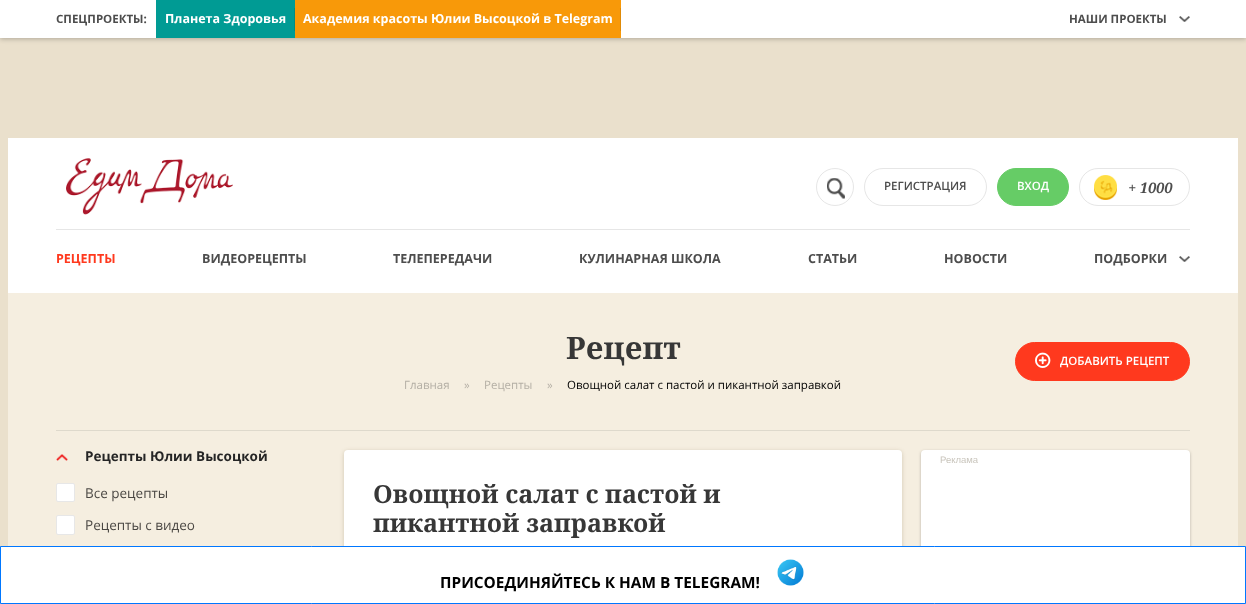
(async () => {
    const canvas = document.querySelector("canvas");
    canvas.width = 1246;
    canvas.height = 604;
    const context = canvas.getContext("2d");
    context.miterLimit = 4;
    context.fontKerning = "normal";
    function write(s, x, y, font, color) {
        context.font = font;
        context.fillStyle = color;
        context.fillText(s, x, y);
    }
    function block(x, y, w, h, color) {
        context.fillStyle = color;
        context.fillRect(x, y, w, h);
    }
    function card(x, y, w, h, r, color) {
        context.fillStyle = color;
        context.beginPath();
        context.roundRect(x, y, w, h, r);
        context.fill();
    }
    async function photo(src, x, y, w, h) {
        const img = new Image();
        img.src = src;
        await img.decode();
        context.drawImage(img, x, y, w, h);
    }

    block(0, 0, 1246, 604, "rgb(234, 224, 204)");
    context.fillStyle = "rgba(0, 0, 0, 0.25)";
    context.filter = "blur(2.5px)";
    context.beginPath();
    context.rect(0, 1, 1246, 38);
    context.fill();
    context.filter = "none";
    block(0, 0, 1246, 38, "rgb(255, 255, 255)");
    write("СПЕЦПРОЕКТЫ:", 56, 23, "bold 11.5px Open Sans", "rgb(77, 77, 77)");
    block(156, 0, 139, 38, "rgb(0, 155, 148)");
    write("Планета Здоровья", 165, 23, "bold 12.5px Open Sans", "rgb(255, 255, 255)");
    block(294, 8, 1, 23, "rgb(0, 140, 133)");
    block(295, 0, 326, 38, "rgb(248, 153, 9)");
    write("Академия красоты Юлии Высоцкой в Telegram", 303, 23, "bold 12.5px Open Sans", "rgb(255, 255, 255)");
    block(620, 8, 1, 23, "rgb(223, 138, 8)");
    write("НАШИ ПРОЕКТЫ", 1069, 23, "bold 11.5px Open Sans", "rgb(77, 77, 77)");
    await photo("media/1.png", 1179, 16, 11, 6);
    block(8, 138, 1230, 155, "rgb(255, 255, 255)");
    await photo("media/2.png", 66, 158, 167, 57);
    context.beginPath();
    context.arc(835, 187, 18.5, 0, Math.PI * 2);
    context.strokeStyle = "rgb(230, 230, 230)";
    context.stroke();
    await photo("media/3.png", 827, 178, 18, 21);
    context.beginPath();
    context.roundRect(864.5, 168.5, 122, 37, 18.5);
    context.stroke();
    write("РЕГИСТРАЦИЯ", 884, 190, "600 11.5px Open Sans", "rgb(77, 77, 77)");
    context.fillStyle = "rgb(102, 204, 102)";
    context.beginPath();
    context.roundRect(997.5, 168.5, 71, 37, 18.5);
    context.fill();
    context.strokeStyle = "rgb(102, 204, 102)";
    context.stroke();
    write("ВХОД", 1017, 190, "600 11.5px Open Sans", "rgb(255, 255, 255)");
    await photo("media/4.png", 1094, 175, 23, 25);
    context.beginPath();
    context.roundRect(1079.5, 168.5, 110, 37, 18.5);
    context.strokeStyle = "rgb(230, 230, 230)";
    context.stroke();
    write("+ 1000", 1128, 193, "italic bold 14.5px Noto Serif", "rgb(77, 77, 77)");
    block(56, 229, 1134, 1, "rgb(230, 230, 230)");
    write("РЕЦЕПТЫ", 56, 263, "bold 12.5px Open Sans", "rgb(255, 57, 30)");
    write("ВИДЕОРЕЦЕПТЫ", 202, 263, "bold 12.5px Open Sans", "rgb(77, 77, 77)");
    write("ТЕЛЕПЕРЕДАЧИ", 393, 263, "bold 12.5px Open Sans", "rgb(77, 77, 77)");
    write("КУЛИНАРНАЯ ШКОЛА", 579, 263, "bold 12.5px Open Sans", "rgb(77, 77, 77)");
    write("СТАТЬИ", 808, 263, "bold 12.5px Open Sans", "rgb(77, 77, 77)");
    write("НОВОСТИ", 944, 263, "bold 12.5px Open Sans", "rgb(77, 77, 77)");
    write("ПОДБОРКИ", 1094, 263, "bold 12.5px Open Sans", "rgb(77, 77, 77)");
    await photo("media/5.png", 1179, 256, 11, 6);
    block(8, 293, 1230, 253, "rgb(245, 238, 224)");
    write("Рецепт", 566, 359, "bold 31px Noto Serif", "rgb(55, 55, 55)");
    context.fillStyle = "rgb(255, 57, 30)";
    context.beginPath();
    context.roundRect(1015.5, 342.5, 174, 38, 19);
    context.fill();
    context.strokeStyle = "rgb(255, 57, 30)";
    context.stroke();
    await photo("media/6.png", 1035, 352, 16, 16);
    write("ДОБАВИТЬ РЕЦЕПТ", 1060, 365, "600 11.5px Open Sans", "rgb(255, 255, 255)");
    write("Главная", 404, 389, "11.5px Open Sans", "rgb(180, 175, 165)");
    write("»", 464, 389, "11.5px Open Sans", "rgb(180, 175, 165)");
    write("Рецепты", 484, 389, "11.5px Open Sans", "rgb(180, 175, 165)");
    write("»", 547, 389, "11.5px Open Sans", "rgb(180, 175, 165)");
    write("Овощной салат с пастой и пикантной заправкой", 567, 389, "11.5px Open Sans", "rgb(0, 0, 0)");
    block(56, 430, 1134, 1, "rgb(222, 217, 204)");
    await photo("media/7.png", 56, 454, 12, 7);
    write("Рецепты Юлии Высоцкой", 85, 461, "bold 13.5px Open Sans", "rgb(37, 37, 37)");
    context.fillStyle = "rgb(255, 255, 255)";
    context.beginPath();
    context.roundRect(56.5, 483.5, 18, 18, 1.5);
    context.fill();
    context.strokeStyle = "rgb(231, 231, 231)";
    context.stroke();
    write("Все рецепты", 85, 498, "13.5px Open Sans", "rgb(74, 71, 67)");
    context.fillStyle = "rgb(255, 255, 255)";
    context.beginPath();
    context.roundRect(56.5, 515.5, 18, 19, 1.5);
    context.fill();
    context.stroke();
    write("Рецепты с видео", 85, 530, "13.5px Open Sans", "rgb(74, 71, 67)");
    context.fillStyle = "rgba(0, 0, 0, 0.25)";
    context.filter = "blur(1.5px)";
    context.beginPath();
    context.roundRect(921, 451, 269, 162, 4);
    context.fill();
    context.filter = "none";
    card(921, 450, 269, 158, 4, "rgb(255, 255, 255)");
    write("Реклама", 940, 463, "9.5px Liberation Sans", "rgb(201, 197, 188)");
    context.fillStyle = "rgba(71, 44, 6, 0.2)";
    context.filter = "blur(2px)";
    context.beginPath();
    context.roundRect(344, 451, 558, 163, 4);
    context.fill();
    context.filter = "none";
    card(344, 450, 558, 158, 4, "rgb(255, 255, 255)");
    write("Овощной салат с пастой и", 373, 503, "bold 25px Noto Serif", "rgb(55, 55, 55)");
    write("пикантной заправкой", 373, 532, "bold 25px Noto Serif", "rgb(55, 55, 55)");
    context.fillStyle = "rgb(255, 255, 255)";
    context.beginPath();
    context.rect(0.5, 546.5, 1245, 57);
    context.fill();
    context.strokeStyle = "rgb(0, 119, 255)";
    context.stroke();
    write("ПРИСОЕДИНЯЙТЕСЬ К НАМ В TELEGRAM!", 440, 588, "bold 15.4px Open Sans", "rgb(0, 0, 0)");
    await photo("media/8.png", 777, 559, 27, 27);
})();
